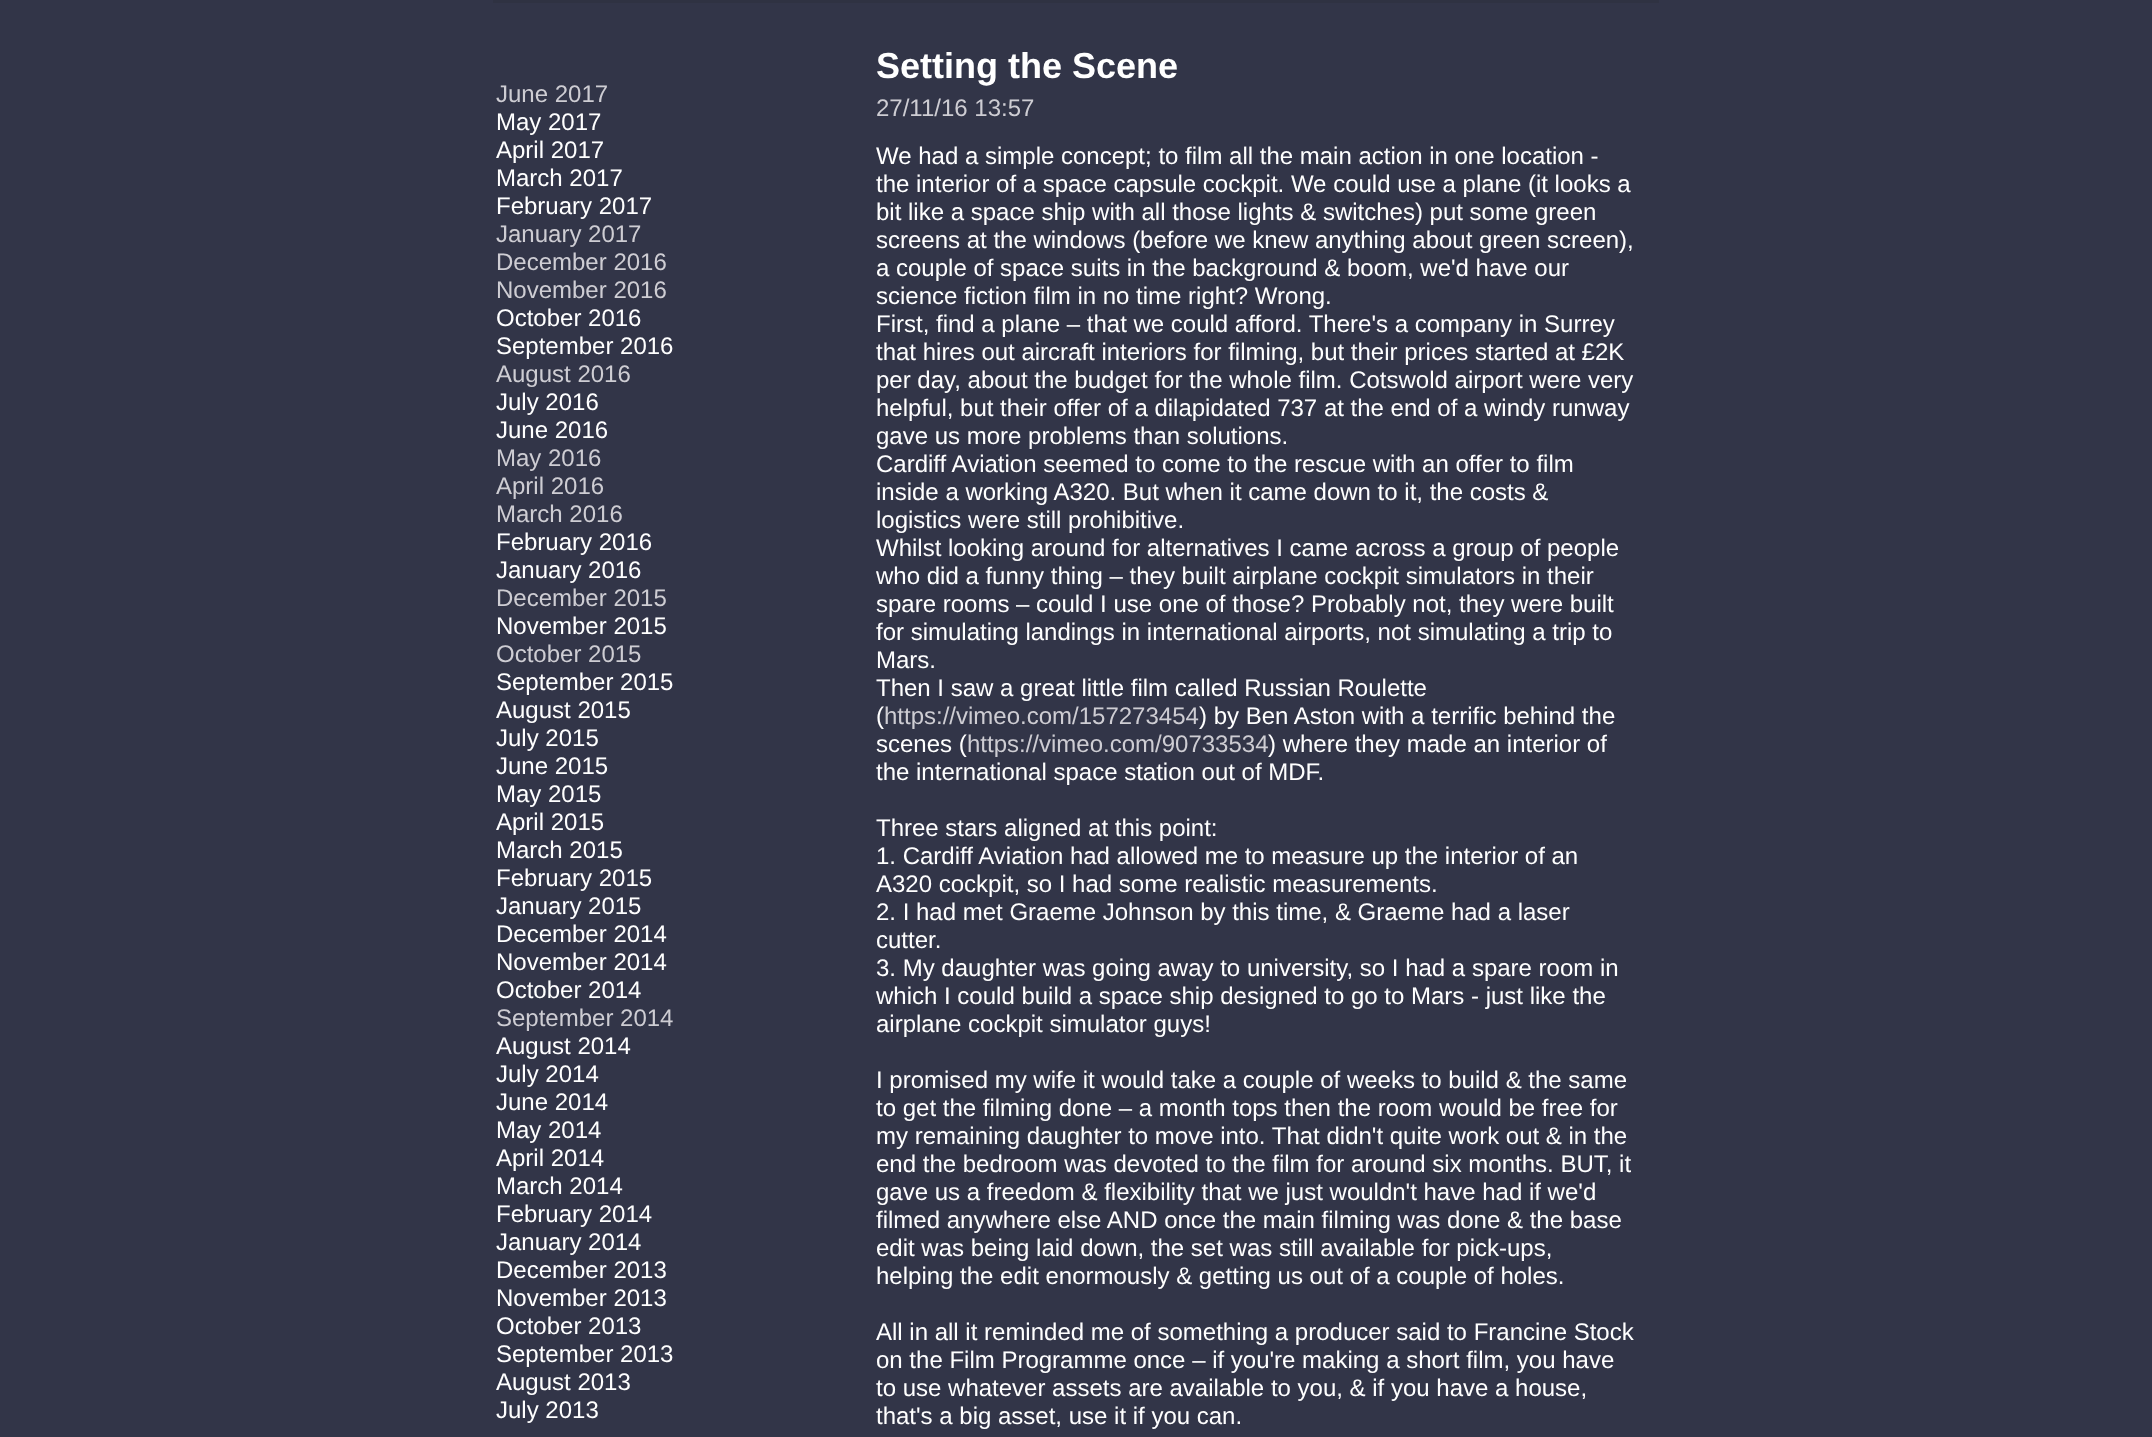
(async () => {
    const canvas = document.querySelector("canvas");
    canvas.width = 2152;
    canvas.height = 1437;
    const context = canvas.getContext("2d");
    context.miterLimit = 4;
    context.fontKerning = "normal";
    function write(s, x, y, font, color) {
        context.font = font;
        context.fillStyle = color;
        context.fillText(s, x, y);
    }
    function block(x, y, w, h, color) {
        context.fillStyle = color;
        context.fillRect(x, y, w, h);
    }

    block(0, 0, 2152, 1437, "rgb(50, 53, 72)");
    block(493, 0, 1166, 3, "rgb(47, 50, 66)");
    write("June 2017", 496, 102, "24px Liberation Sans", "rgb(206, 205, 211)");
    write("May 2017", 496, 130, "24px Liberation Sans", "rgb(255, 255, 255)");
    write("April 2017", 496, 158, "24px Liberation Sans", "rgb(255, 255, 255)");
    write("March 2017", 496, 186, "24px Liberation Sans", "rgb(255, 255, 255)");
    write("February 2017", 496, 214, "24px Liberation Sans", "rgb(255, 255, 255)");
    write("January 2017", 496, 242, "24px Liberation Sans", "rgb(206, 205, 211)");
    write("December 2016", 496, 270, "24px Liberation Sans", "rgb(206, 205, 211)");
    write("November 2016", 496, 298, "24px Liberation Sans", "rgb(206, 205, 211)");
    write("October 2016", 496, 326, "24px Liberation Sans", "rgb(255, 255, 255)");
    write("September 2016", 496, 354, "24px Liberation Sans", "rgb(255, 255, 255)");
    write("August 2016", 496, 382, "24px Liberation Sans", "rgb(206, 205, 211)");
    write("July 2016", 496, 410, "24px Liberation Sans", "rgb(255, 255, 255)");
    write("June 2016", 496, 438, "24px Liberation Sans", "rgb(255, 255, 255)");
    write("May 2016", 496, 466, "24px Liberation Sans", "rgb(206, 205, 211)");
    write("April 2016", 496, 494, "24px Liberation Sans", "rgb(206, 205, 211)");
    write("March 2016", 496, 522, "24px Liberation Sans", "rgb(206, 205, 211)");
    write("February 2016", 496, 550, "24px Liberation Sans", "rgb(255, 255, 255)");
    write("January 2016", 496, 578, "24px Liberation Sans", "rgb(255, 255, 255)");
    write("December 2015", 496, 606, "24px Liberation Sans", "rgb(206, 205, 211)");
    write("November 2015", 496, 634, "24px Liberation Sans", "rgb(255, 255, 255)");
    write("October 2015", 496, 662, "24px Liberation Sans", "rgb(206, 205, 211)");
    write("September 2015", 496, 690, "24px Liberation Sans", "rgb(255, 255, 255)");
    write("August 2015", 496, 718, "24px Liberation Sans", "rgb(255, 255, 255)");
    write("July 2015", 496, 746, "24px Liberation Sans", "rgb(255, 255, 255)");
    write("June 2015", 496, 774, "24px Liberation Sans", "rgb(255, 255, 255)");
    write("May 2015", 496, 802, "24px Liberation Sans", "rgb(255, 255, 255)");
    write("April 2015", 496, 830, "24px Liberation Sans", "rgb(255, 255, 255)");
    write("March 2015", 496, 858, "24px Liberation Sans", "rgb(255, 255, 255)");
    write("February 2015", 496, 886, "24px Liberation Sans", "rgb(255, 255, 255)");
    write("January 2015", 496, 914, "24px Liberation Sans", "rgb(255, 255, 255)");
    write("December 2014", 496, 942, "24px Liberation Sans", "rgb(255, 255, 255)");
    write("November 2014", 496, 970, "24px Liberation Sans", "rgb(255, 255, 255)");
    write("October 2014", 496, 998, "24px Liberation Sans", "rgb(255, 255, 255)");
    write("September 2014", 496, 1026, "24px Liberation Sans", "rgb(206, 205, 211)");
    write("August 2014", 496, 1054, "24px Liberation Sans", "rgb(255, 255, 255)");
    write("July 2014", 496, 1082, "24px Liberation Sans", "rgb(255, 255, 255)");
    write("June 2014", 496, 1110, "24px Liberation Sans", "rgb(255, 255, 255)");
    write("May 2014", 496, 1138, "24px Liberation Sans", "rgb(255, 255, 255)");
    write("April 2014", 496, 1166, "24px Liberation Sans", "rgb(255, 255, 255)");
    write("March 2014", 496, 1194, "24px Liberation Sans", "rgb(255, 255, 255)");
    write("February 2014", 496, 1222, "24px Liberation Sans", "rgb(255, 255, 255)");
    write("January 2014", 496, 1250, "24px Liberation Sans", "rgb(255, 255, 255)");
    write("December 2013", 496, 1278, "24px Liberation Sans", "rgb(255, 255, 255)");
    write("November 2013", 496, 1306, "24px Liberation Sans", "rgb(255, 255, 255)");
    write("October 2013", 496, 1334, "24px Liberation Sans", "rgb(255, 255, 255)");
    write("September 2013", 496, 1362, "24px Liberation Sans", "rgb(255, 255, 255)");
    write("August 2013", 496, 1390, "24px Liberation Sans", "rgb(255, 255, 255)");
    write("July 2013", 496, 1418, "24px Liberation Sans", "rgb(255, 255, 255)");
    write("Setting the Scene", 876, 78, "bold 36px Liberation Sans", "rgb(255, 255, 255)");
    write("27/11/16 13:57", 876, 116, "24px Liberation Sans", "rgb(206, 205, 211)");
    write("We had a simple concept; to film all the main action in one location -", 876, 164, "24px Liberation Sans", "rgb(255, 255, 255)");
    write("the interior of a space capsule cockpit. We could use a plane (it looks a", 876, 192, "24px Liberation Sans", "rgb(255, 255, 255)");
    write("bit like a space ship with all those lights & switches) put some green", 876, 220, "24px Liberation Sans", "rgb(255, 255, 255)");
    write("screens at the windows (before we knew anything about green screen),", 876, 248, "24px Liberation Sans", "rgb(255, 255, 255)");
    write("a couple of space suits in the background & boom, we'd have our", 876, 276, "24px Liberation Sans", "rgb(255, 255, 255)");
    write("science fiction film in no time right? Wrong.", 876, 304, "24px Liberation Sans", "rgb(255, 255, 255)");
    write("First, find a plane – that we could afford. There's a company in Surrey", 876, 332, "24px Liberation Sans", "rgb(255, 255, 255)");
    write("that hires out aircraft interiors for filming, but their prices started at £2K", 876, 360, "24px Liberation Sans", "rgb(255, 255, 255)");
    write("per day, about the budget for the whole film. Cotswold airport were very", 876, 388, "24px Liberation Sans", "rgb(255, 255, 255)");
    write("helpful, but their offer of a dilapidated 737 at the end of a windy runway", 876, 416, "24px Liberation Sans", "rgb(255, 255, 255)");
    write("gave us more problems than solutions.", 876, 444, "24px Liberation Sans", "rgb(255, 255, 255)");
    write("Cardiff Aviation seemed to come to the rescue with an offer to film", 876, 472, "24px Liberation Sans", "rgb(255, 255, 255)");
    write("inside a working A320. But when it came down to it, the costs &", 876, 500, "24px Liberation Sans", "rgb(255, 255, 255)");
    write("logistics were still prohibitive.", 876, 528, "24px Liberation Sans", "rgb(255, 255, 255)");
    write("Whilst looking around for alternatives I came across a group of people", 876, 556, "24px Liberation Sans", "rgb(255, 255, 255)");
    write("who did a funny thing – they built airplane cockpit simulators in their", 876, 584, "24px Liberation Sans", "rgb(255, 255, 255)");
    write("spare rooms – could I use one of those? Probably not, they were built", 876, 612, "24px Liberation Sans", "rgb(255, 255, 255)");
    write("for simulating landings in international airports, not simulating a trip to", 876, 640, "24px Liberation Sans", "rgb(255, 255, 255)");
    write("Mars.", 876, 668, "24px Liberation Sans", "rgb(255, 255, 255)");
    write("Then I saw a great little film called Russian Roulette", 876, 696, "24px Liberation Sans", "rgb(255, 255, 255)");
    write("(", 876, 724, "24px Liberation Sans", "rgb(255, 255, 255)");
    write("https://vimeo.com/157273454", 884, 724, "24px Liberation Sans", "rgb(206, 205, 211)");
    write(") by Ben Aston with a terrific behind the", 1199, 724, "24px Liberation Sans", "rgb(255, 255, 255)");
    write("scenes (", 876, 752, "24px Liberation Sans", "rgb(255, 255, 255)");
    write("https://vimeo.com/90733534", 967, 752, "24px Liberation Sans", "rgb(206, 205, 211)");
    write(") where they made an interior of", 1268, 752, "24px Liberation Sans", "rgb(255, 255, 255)");
    write("the international space station out of MDF.", 876, 780, "24px Liberation Sans", "rgb(255, 255, 255)");
    write("Three stars aligned at this point:", 876, 836, "24px Liberation Sans", "rgb(255, 255, 255)");
    write("1. Cardiff Aviation had allowed me to measure up the interior of an", 876, 864, "24px Liberation Sans", "rgb(255, 255, 255)");
    write("A320 cockpit, so I had some realistic measurements.", 876, 892, "24px Liberation Sans", "rgb(255, 255, 255)");
    write("2. I had met Graeme Johnson by this time, & Graeme had a laser", 876, 920, "24px Liberation Sans", "rgb(255, 255, 255)");
    write("cutter.", 876, 948, "24px Liberation Sans", "rgb(255, 255, 255)");
    write("3. My daughter was going away to university, so I had a spare room in", 876, 976, "24px Liberation Sans", "rgb(255, 255, 255)");
    write("which I could build a space ship designed to go to Mars - just like the", 876, 1004, "24px Liberation Sans", "rgb(255, 255, 255)");
    write("airplane cockpit simulator guys!", 876, 1032, "24px Liberation Sans", "rgb(255, 255, 255)");
    write("I promised my wife it would take a couple of weeks to build & the same", 876, 1088, "24px Liberation Sans", "rgb(255, 255, 255)");
    write("to get the filming done – a month tops then the room would be free for", 876, 1116, "24px Liberation Sans", "rgb(255, 255, 255)");
    write("my remaining daughter to move into. That didn't quite work out & in the", 876, 1144, "24px Liberation Sans", "rgb(255, 255, 255)");
    write("end the bedroom was devoted to the film for around six months. BUT, it", 876, 1172, "24px Liberation Sans", "rgb(255, 255, 255)");
    write("gave us a freedom & flexibility that we just wouldn't have had if we'd", 876, 1200, "24px Liberation Sans", "rgb(255, 255, 255)");
    write("filmed anywhere else AND once the main filming was done & the base", 876, 1228, "24px Liberation Sans", "rgb(255, 255, 255)");
    write("edit was being laid down, the set was still available for pick-ups,", 876, 1256, "24px Liberation Sans", "rgb(255, 255, 255)");
    write("helping the edit enormously & getting us out of a couple of holes.", 876, 1284, "24px Liberation Sans", "rgb(255, 255, 255)");
    write("All in all it reminded me of something a producer said to Francine Stock", 876, 1340, "24px Liberation Sans", "rgb(255, 255, 255)");
    write("on the Film Programme once – if you're making a short film, you have", 876, 1368, "24px Liberation Sans", "rgb(255, 255, 255)");
    write("to use whatever assets are available to you, & if you have a house,", 876, 1396, "24px Liberation Sans", "rgb(255, 255, 255)");
    write("that's a big asset, use it if you can.", 876, 1424, "24px Liberation Sans", "rgb(255, 255, 255)");
})();
